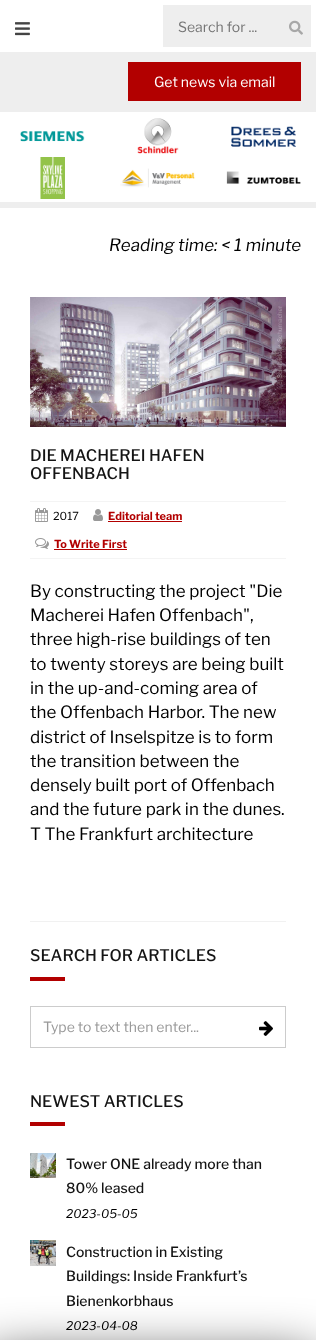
(async () => {
    const canvas = document.querySelector("canvas");
    canvas.width = 316;
    canvas.height = 1340;
    const context = canvas.getContext("2d");
    context.miterLimit = 4;
    context.fontKerning = "normal";
    function write(s, x, y, font, color) {
        context.font = font;
        context.fillStyle = color;
        context.fillText(s, x, y);
    }
    function block(x, y, w, h, color) {
        context.fillStyle = color;
        context.fillRect(x, y, w, h);
    }
    async function photo(src, x, y, w, h) {
        const img = new Image();
        img.src = src;
        await img.decode();
        context.drawImage(img, x, y, w, h);
    }

    block(0, 0, 316, 1340, "rgb(255, 255, 255)");
    await photo("media/1.png", 15, 22, 15, 14);
    block(163, 5, 148, 42, "rgb(238, 238, 238)");
    write("Search for ...", 178, 32, "14px Libre Franklin", "rgb(117, 117, 117)");
    await photo("media/2.png", 289, 20, 14, 15);
    block(0, 52, 316, 60, "rgb(238, 238, 238)");
    block(128, 62, 173, 39, "rgb(178, 0, 0)");
    write("Get news via email", 154, 87, "14px Libre Franklin", "rgb(255, 255, 255)");
    block(0, 202, 316, 6, "rgb(238, 238, 238)");
    await photo("media/3.png", 20, 131, 65, 11);
    await photo("media/4.png", 137, 118, 42, 36);
    await photo("media/5.png", 231, 126, 65, 21);
    await photo("media/6.png", 40, 157, 25, 42);
    await photo("media/7.png", 120, 168, 75, 20);
    await photo("media/8.png", 226, 171, 75, 13);
    write("Reading time: < 1 minute", 109, 251, "italic 17px Libre Franklin", "rgb(0, 0, 0)");
    block(30, 921, 256, 1, "rgb(241, 241, 241)");
    await photo("media/9.png", 30, 297, 256, 130);
    write("DIE MACHEREI HAFEN", 30, 461, "500 16px Libre Franklin", "rgb(20, 20, 20)");
    write("OFFENBACH", 30, 479, "500 16px Libre Franklin", "rgb(20, 20, 20)");
    block(30, 501, 256, 1, "rgb(244, 244, 244)");
    block(30, 558, 256, 1, "rgb(244, 244, 244)");
    await photo("media/10.png", 35, 508, 13, 14);
    write("2017", 53, 520, "11px Libre Franklin", "rgb(0, 0, 0)");
    await photo("media/11.png", 93, 509, 10, 12);
    write("Editorial team", 108, 520, "bold 11px Libre Franklin", "rgb(178, 0, 0)");
    block(108, 521, 74, 1, "rgb(178, 0, 0)");
    await photo("media/12.png", 35, 538, 14, 11);
    write("To Write First", 54, 548, "bold 11px Libre Franklin", "rgb(178, 0, 0)");
    block(54, 549, 73, 1, "rgb(178, 0, 0)");
    write("By constructing the project \"Die", 30, 597, "17px Libre Franklin", "rgb(0, 0, 0)");
    write("Macherei Hafen Offenbach\",", 30, 621, "17px Libre Franklin", "rgb(0, 0, 0)");
    write("three high-rise buildings of ten", 30, 645, "17px Libre Franklin", "rgb(0, 0, 0)");
    write("to twenty storeys are being built", 30, 670, "17px Libre Franklin", "rgb(0, 0, 0)");
    write("in the up-and-coming area of", 30, 694, "17px Libre Franklin", "rgb(0, 0, 0)");
    write("the Offenbach Harbor. The new", 30, 718, "17px Libre Franklin", "rgb(0, 0, 0)");
    write("district of Inselspitze is to form", 30, 743, "17px Libre Franklin", "rgb(0, 0, 0)");
    write("the transition between the", 30, 767, "17px Libre Franklin", "rgb(0, 0, 0)");
    write("densely built port of Offenbach", 30, 791, "17px Libre Franklin", "rgb(0, 0, 0)");
    write("and the future park in the dunes.", 30, 815, "17px Libre Franklin", "rgb(0, 0, 0)");
    write("T The Frankfurt architecture", 30, 840, "17px Libre Franklin", "rgb(0, 0, 0)");
    write("SEARCH FOR ARTICLES", 30, 961, "500 16px Libre Franklin", "rgb(20, 20, 20)");
    block(30, 977, 35, 4, "rgb(178, 0, 0)");
    context.strokeStyle = "rgb(204, 204, 204)";
    context.strokeRect(30.5, 1006.5, 255, 41);
    write("Type to text then enter...", 43, 1032, "14px Libre Franklin", "rgb(153, 153, 153)");
    await photo("media/13.png", 259, 1021, 14, 15);
    write("NEWEST ARTICLES", 30, 1107, "500 16px Libre Franklin", "rgb(20, 20, 20)");
    block(30, 1122, 35, 4, "rgb(178, 0, 0)");
    await photo("media/14.png", 30, 1153, 26, 25);
    write("Tower ONE already more than", 66, 1169, "500 14px Libre Franklin", "rgb(20, 20, 20)");
    write("80% leased", 66, 1193, "500 14px Libre Franklin", "rgb(20, 20, 20)");
    write("2023-05-05", 66, 1218, "italic 12px Libre Franklin", "rgb(0, 0, 0)");
    await photo("media/15.png", 30, 1240, 26, 26);
    write("Construction in Existing", 66, 1257, "500 14px Libre Franklin", "rgb(20, 20, 20)");
    write("Buildings: Inside Frankfurt’s", 66, 1281, "500 14px Libre Franklin", "rgb(20, 20, 20)");
    write("Bienenkorbhaus", 66, 1306, "500 14px Libre Franklin", "rgb(20, 20, 20)");
    write("2023-04-08", 66, 1330, "italic 12px Libre Franklin", "rgb(0, 0, 0)");
    context.filter = "blur(27.5px)";
    context.beginPath();
    context.rect(-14, 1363, 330, 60);
    context.fill();
    context.filter = "none";
})();
